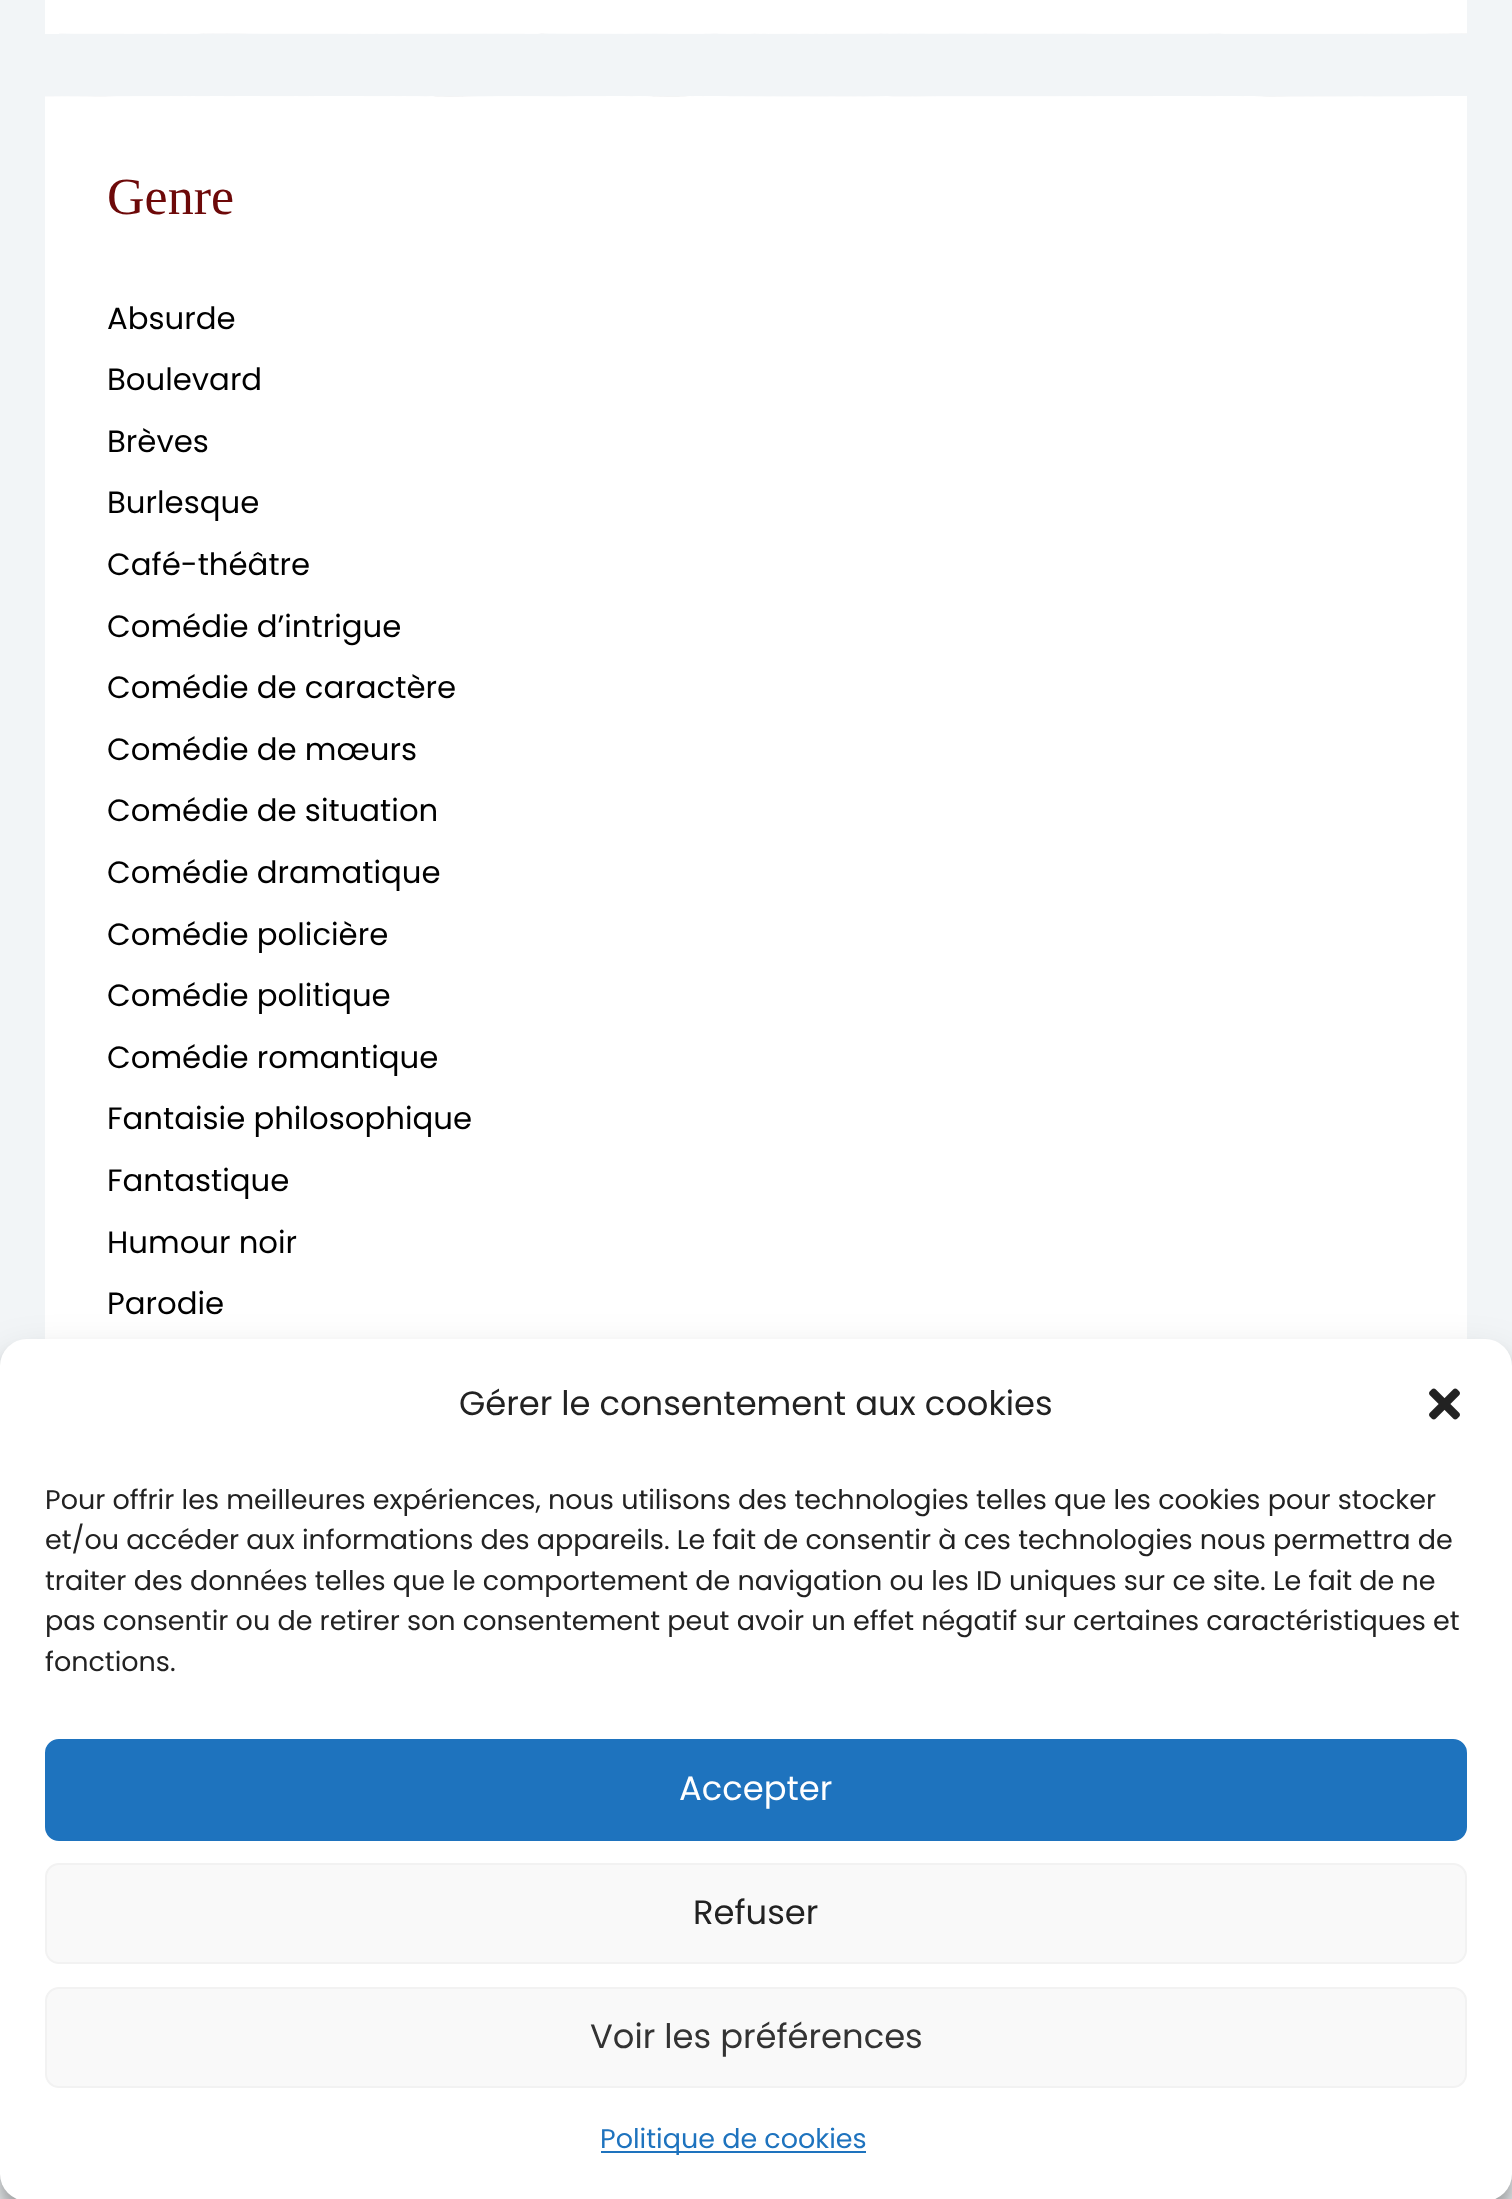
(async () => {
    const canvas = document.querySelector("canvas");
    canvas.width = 1512;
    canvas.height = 2199;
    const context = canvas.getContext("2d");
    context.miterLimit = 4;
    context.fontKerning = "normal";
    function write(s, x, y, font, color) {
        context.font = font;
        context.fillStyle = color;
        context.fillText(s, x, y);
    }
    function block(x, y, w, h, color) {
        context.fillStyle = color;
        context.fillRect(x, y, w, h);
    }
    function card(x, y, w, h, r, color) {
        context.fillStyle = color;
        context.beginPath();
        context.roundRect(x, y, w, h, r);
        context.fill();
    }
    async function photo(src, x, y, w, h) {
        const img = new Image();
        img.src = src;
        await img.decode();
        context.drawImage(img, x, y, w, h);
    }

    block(0, 0, 1512, 2199, "rgb(242, 245, 247)");
    block(45, 0, 1422, 34, "rgb(255, 255, 255)");
    await photo("media/1.png", 59, 33, 1408, 1);
    block(45, 97, 1422, 1242, "rgb(255, 255, 255)");
    await photo("media/2.png", 45, 96, 1422, 1);
    write("Genre", 107, 214, "52px Liberation Serif", "rgb(109, 9, 9)");
    write("Absurde", 107, 329, "30.75px Poppins", "rgb(0, 0, 0)");
    write("Boulevard", 107, 390, "30.75px Poppins", "rgb(0, 0, 0)");
    write("Brèves", 107, 452, "30.75px Poppins", "rgb(0, 0, 0)");
    write("Burlesque", 107, 513, "30.75px Poppins", "rgb(0, 0, 0)");
    write("Café-théâtre", 107, 575, "30.75px Poppins", "rgb(0, 0, 0)");
    write("Comédie d’intrigue", 107, 637, "30.75px Poppins", "rgb(0, 0, 0)");
    write("Comédie de caractère", 107, 698, "30.75px Poppins", "rgb(0, 0, 0)");
    write("Comédie de mœurs", 107, 760, "30.75px Poppins", "rgb(0, 0, 0)");
    write("Comédie de situation", 107, 821, "30.75px Poppins", "rgb(0, 0, 0)");
    write("Comédie dramatique", 107, 883, "30.75px Poppins", "rgb(0, 0, 0)");
    write("Comédie policière", 107, 945, "30.75px Poppins", "rgb(0, 0, 0)");
    write("Comédie politique", 107, 1006, "30.75px Poppins", "rgb(0, 0, 0)");
    write("Comédie romantique", 107, 1068, "30.75px Poppins", "rgb(0, 0, 0)");
    write("Fantaisie philosophique", 107, 1129, "30.75px Poppins", "rgb(0, 0, 0)");
    write("Fantastique", 107, 1191, "30.75px Poppins", "rgb(0, 0, 0)");
    write("Humour noir", 107, 1253, "30.75px Poppins", "rgb(0, 0, 0)");
    write("Parodie", 107, 1314, "30.75px Poppins", "rgb(0, 0, 0)");
    context.fillStyle = "rgba(0, 0, 0, 0.23)";
    context.filter = "blur(7px)";
    context.beginPath();
    context.roundRect(0, 1352, 1512, 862, 27);
    context.fill();
    context.filter = "none";
    context.fillStyle = "rgba(0, 0, 0, 0.19)";
    context.filter = "blur(22.5px)";
    context.beginPath();
    context.roundRect(0, 1361, 1512, 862, 27);
    context.fill();
    context.filter = "none";
    card(0, 1339, 1512, 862, 27, "rgb(255, 255, 255)");
    write("Gérer le consentement aux cookies", 459, 1415, "33.75px Poppins", "rgb(34, 34, 34)");
    await photo("media/3.png", 1429, 1388, 31, 32);
    write("Pour offrir les meilleures expériences, nous utilisons des technologies telles que les cookies pour stocker", 45, 1509, "27px Poppins", "rgb(34, 34, 34)");
    write("et/ou accéder aux informations des appareils. Le fait de consentir à ces technologies nous permettra de", 45, 1549, "27px Poppins", "rgb(34, 34, 34)");
    write("traiter des données telles que le comportement de navigation ou les ID uniques sur ce site. Le fait de ne", 45, 1590, "27px Poppins", "rgb(34, 34, 34)");
    write("pas consentir ou de retirer son consentement peut avoir un effet négatif sur certaines caractéristiques et", 45, 1630, "27px Poppins", "rgb(34, 34, 34)");
    write("fonctions.", 45, 1671, "27px Poppins", "rgb(34, 34, 34)");
    context.fillStyle = "rgb(30, 115, 190)";
    context.beginPath();
    context.roundRect(46, 1740, 1420, 100, 13);
    context.fill();
    context.strokeStyle = "rgb(30, 115, 190)";
    context.lineWidth = 2;
    context.stroke();
    write("Accepter", 679, 1800, "33.75px Poppins", "rgb(255, 255, 255)");
    context.fillStyle = "rgb(249, 249, 249)";
    context.beginPath();
    context.roundRect(46, 1864, 1420, 99, 13);
    context.fill();
    context.strokeStyle = "rgb(242, 242, 242)";
    context.stroke();
    write("Refuser", 693, 1924, "33.75px Poppins", "rgb(34, 34, 34)");
    context.fillStyle = "rgb(249, 249, 249)";
    context.beginPath();
    context.roundRect(46, 1988, 1420, 99, 13);
    context.fill();
    context.stroke();
    write("Voir les préférences", 590, 2048, "33.75px Poppins", "rgb(51, 51, 51)");
    block(601, 2151, 265, 2, "rgb(30, 115, 190)");
    write("Politique de cookies", 600, 2148, "27px Poppins", "rgb(30, 115, 190)");
})();
